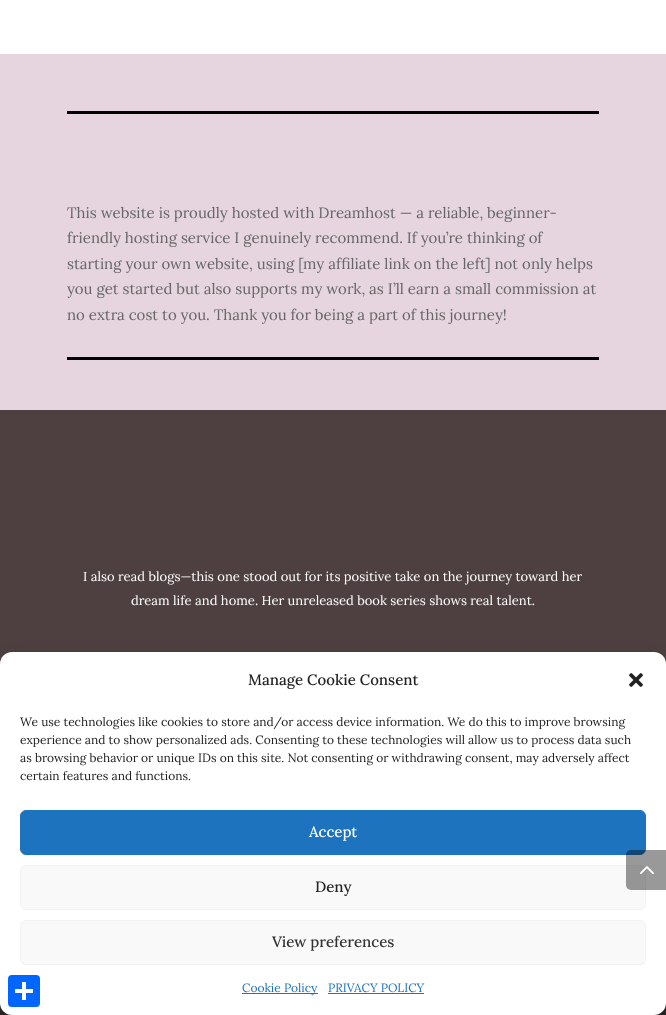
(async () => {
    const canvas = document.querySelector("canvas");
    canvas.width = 666;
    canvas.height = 1015;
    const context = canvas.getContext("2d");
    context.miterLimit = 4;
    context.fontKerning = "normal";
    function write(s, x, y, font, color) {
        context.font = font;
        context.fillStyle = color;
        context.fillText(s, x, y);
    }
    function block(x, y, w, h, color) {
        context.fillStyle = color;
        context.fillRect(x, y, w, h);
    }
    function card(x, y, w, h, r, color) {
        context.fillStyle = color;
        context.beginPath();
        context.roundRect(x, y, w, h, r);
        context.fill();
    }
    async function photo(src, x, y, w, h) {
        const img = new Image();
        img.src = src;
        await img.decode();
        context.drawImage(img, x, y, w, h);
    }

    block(0, 0, 666, 1015, "rgb(255, 255, 255)");
    block(0, 54, 666, 356, "rgb(230, 213, 222)");
    block(67, 111, 532, 3, "rgb(0, 0, 0)");
    block(67, 357, 532, 3, "rgb(0, 0, 0)");
    write("This website is proudly hosted with Dreamhost — a reliable, beginner-", 67, 218, "15px Lora", "rgb(102, 102, 102)");
    write("friendly hosting service I genuinely recommend. If you’re thinking of", 67, 243, "15px Lora", "rgb(102, 102, 102)");
    write("starting your own website, using [my affiliate link on the left] not only helps", 67, 269, "15px Lora", "rgb(102, 102, 102)");
    write("you get started but also supports my work, as I’ll earn a small commission at", 67, 294, "15px Lora", "rgb(102, 102, 102)");
    write("no extra cost to you. Thank you for being a part of this journey!", 67, 320, "15px Lora", "rgb(102, 102, 102)");
    block(0, 410, 666, 254, "rgb(78, 64, 64)");
    write("I also read blogs—this one stood out for its positive take on the journey toward her", 83, 581, "13px Lora", "rgb(255, 255, 255)");
    write("dream life and home. Her unreleased book series shows real talent.", 131, 605, "13px Lora", "rgb(255, 255, 255)");
    block(0, 1003, 666, 12, "rgb(53, 44, 44)");
    context.fillStyle = "rgba(0, 0, 0, 0.23)";
    context.filter = "blur(3px)";
    context.beginPath();
    context.roundRect(0, 658, 666, 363, 12);
    context.fill();
    context.filter = "none";
    context.fillStyle = "rgba(0, 0, 0, 0.19)";
    context.filter = "blur(10px)";
    context.beginPath();
    context.roundRect(0, 662, 666, 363, 12);
    context.fill();
    context.filter = "none";
    card(0, 652, 666, 363, 12, "rgb(255, 255, 255)");
    context.fillStyle = "rgb(30, 115, 190)";
    context.beginPath();
    context.roundRect(20.5, 810.5, 625, 44, 5.5);
    context.fill();
    context.strokeStyle = "rgb(30, 115, 190)";
    context.stroke();
    context.fillStyle = "rgb(249, 249, 249)";
    context.beginPath();
    context.roundRect(20.5, 865.5, 625, 44, 5.5);
    context.fill();
    context.strokeStyle = "rgb(242, 242, 242)";
    context.stroke();
    context.fillStyle = "rgba(0, 0, 0, 0.4)";
    context.beginPath();
    context.roundRect(626, 850, 40, 40, [5, 0, 0, 5]);
    context.fill();
    await photo("media/1.png", 640, 866, 14, 8);
    write("Manage Cookie Consent", 248, 685, "500 15px Lora", "rgb(34, 34, 34)");
    await photo("media/2.png", 629, 673, 14, 14);
    write("We use technologies like cookies to store and/or access device information. We do this to improve browsing", 20, 726, "12px Lora", "rgb(34, 34, 34)");
    write("experience and to show personalized ads. Consenting to these technologies will allow us to process data such", 20, 744, "12px Lora", "rgb(34, 34, 34)");
    write("as browsing behavior or unique IDs on this site. Not consenting or withdrawing consent, may adversely affect", 20, 762, "12px Lora", "rgb(34, 34, 34)");
    write("certain features and functions.", 20, 780, "12px Lora", "rgb(34, 34, 34)");
    write("Accept", 309, 837, "500 15px Lora", "rgb(255, 255, 255)");
    write("Deny", 315, 892, "500 15px Lora", "rgb(34, 34, 34)");
    context.fillStyle = "rgb(249, 249, 249)";
    context.beginPath();
    context.roundRect(20.5, 920.5, 625, 44, 5.5);
    context.fill();
    context.stroke();
    write("View preferences", 272, 947, "500 15px Lora", "rgb(51, 51, 51)");
    block(242, 993, 76, 1, "rgb(30, 115, 190)");
    write("Cookie Policy", 242, 992, "12px Lora", "rgb(30, 115, 190)");
    write("PRIVACY POLICY", 328, 992, "12px Lora", "rgb(30, 115, 190)");
    block(328, 993, 96, 1, "rgb(30, 115, 190)");
    card(8, 975, 32, 32, 4, "rgb(1, 102, 255)");
    block(22, 982, 4, 18, "rgb(255, 255, 255)");
    block(15, 989, 18, 4, "rgb(255, 255, 255)");
})();
